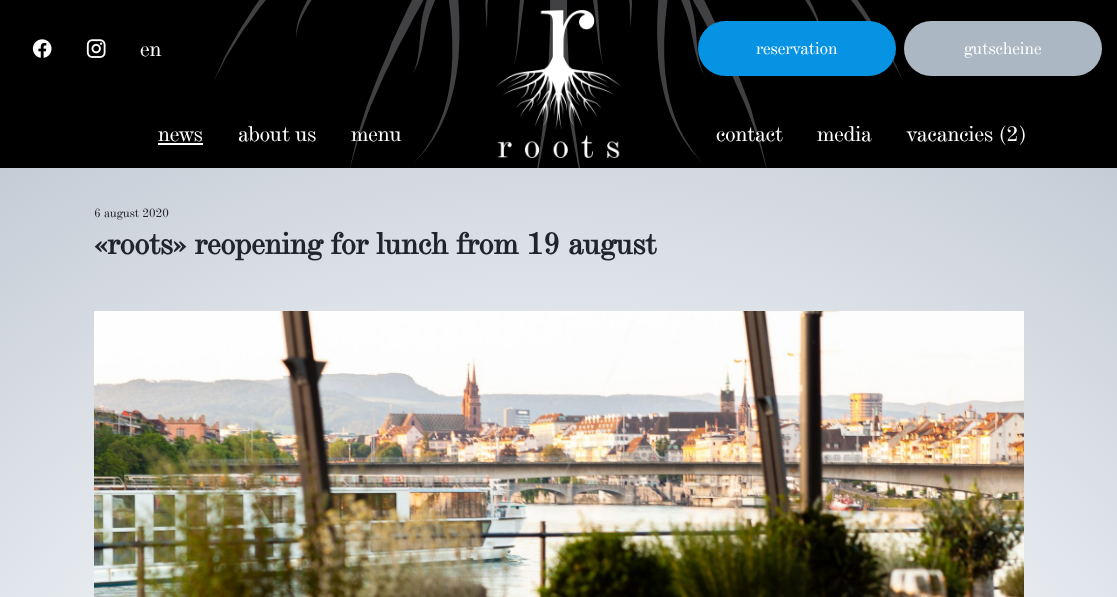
(async () => {
    const canvas = document.querySelector("canvas");
    canvas.width = 1117;
    canvas.height = 597;
    const context = canvas.getContext("2d");
    context.miterLimit = 4;
    context.fontKerning = "normal";
    function write(s, x, y, font, color) {
        context.font = font;
        context.fillStyle = color;
        context.fillText(s, x, y);
    }
    function block(x, y, w, h, color) {
        context.fillStyle = color;
        context.fillRect(x, y, w, h);
    }
    function card(x, y, w, h, r, color) {
        context.fillStyle = color;
        context.beginPath();
        context.roundRect(x, y, w, h, r);
        context.fill();
    }
    async function photo(src, x, y, w, h) {
        const img = new Image();
        img.src = src;
        await img.decode();
        context.drawImage(img, x, y, w, h);
    }
    let gradient;

    block(0, 0, 1117, 597, "rgb(0, 0, 0)");
    await photo("media/1.png", 214, 0, 689, 168);
    await photo("media/2.png", 32, 39, 20, 19);
    await photo("media/3.png", 86, 39, 20, 19);
    write("en", 140, 56, "22.5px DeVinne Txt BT", "rgb(255, 255, 255)");
    write("news", 158, 141, "22.5px DeVinne Txt BT", "rgb(255, 255, 255)");
    block(158, 143, 45, 2, "rgb(255, 255, 255)");
    write("about us", 238, 141, "22.5px DeVinne Txt BT", "rgb(255, 255, 255)");
    write("menu", 351, 141, "22.5px DeVinne Txt BT", "rgb(255, 255, 255)");
    await photo("media/4.png", 496, 10, 125, 148);
    card(698, 21, 198, 55, 27.5, "rgb(6, 147, 227)");
    write("reservation", 756, 54, "18px DeVinne Txt BT", "rgb(255, 255, 255)");
    card(904, 21, 198, 55, 27.5, "rgb(171, 184, 195)");
    write("gutscheine", 964, 54, "18px DeVinne Txt BT", "rgb(255, 255, 255)");
    write("contact", 716, 141, "22.5px DeVinne Txt BT", "rgb(255, 255, 255)");
    write("media", 817, 141, "22.5px DeVinne Txt BT", "rgb(255, 255, 255)");
    write("vacancies (2)", 907, 141, "22.5px DeVinne Txt BT", "rgb(255, 255, 255)");
    gradient = context.createRadialGradient(559, 1013, 0, 559, 1013, 1013);
    gradient.addColorStop(0, "rgb(241, 244, 247)");
    gradient.addColorStop(0.5, "rgb(241, 244, 247)");
    gradient.addColorStop(1, "rgb(197, 204, 214)");
    context.fillStyle = gradient;
    context.fillRect(0, 168, 1117, 429);
    write("6 august 2020", 94, 217, "12.75px DeVinne Txt BT", "rgb(33, 37, 41)");
    write("«roots» reopening for lunch from 19 august", 94, 254, "bold 32px DeVinne Txt BT", "rgb(33, 37, 41)");
    await photo("media/5.png", 94, 311, 930, 286);
})();
